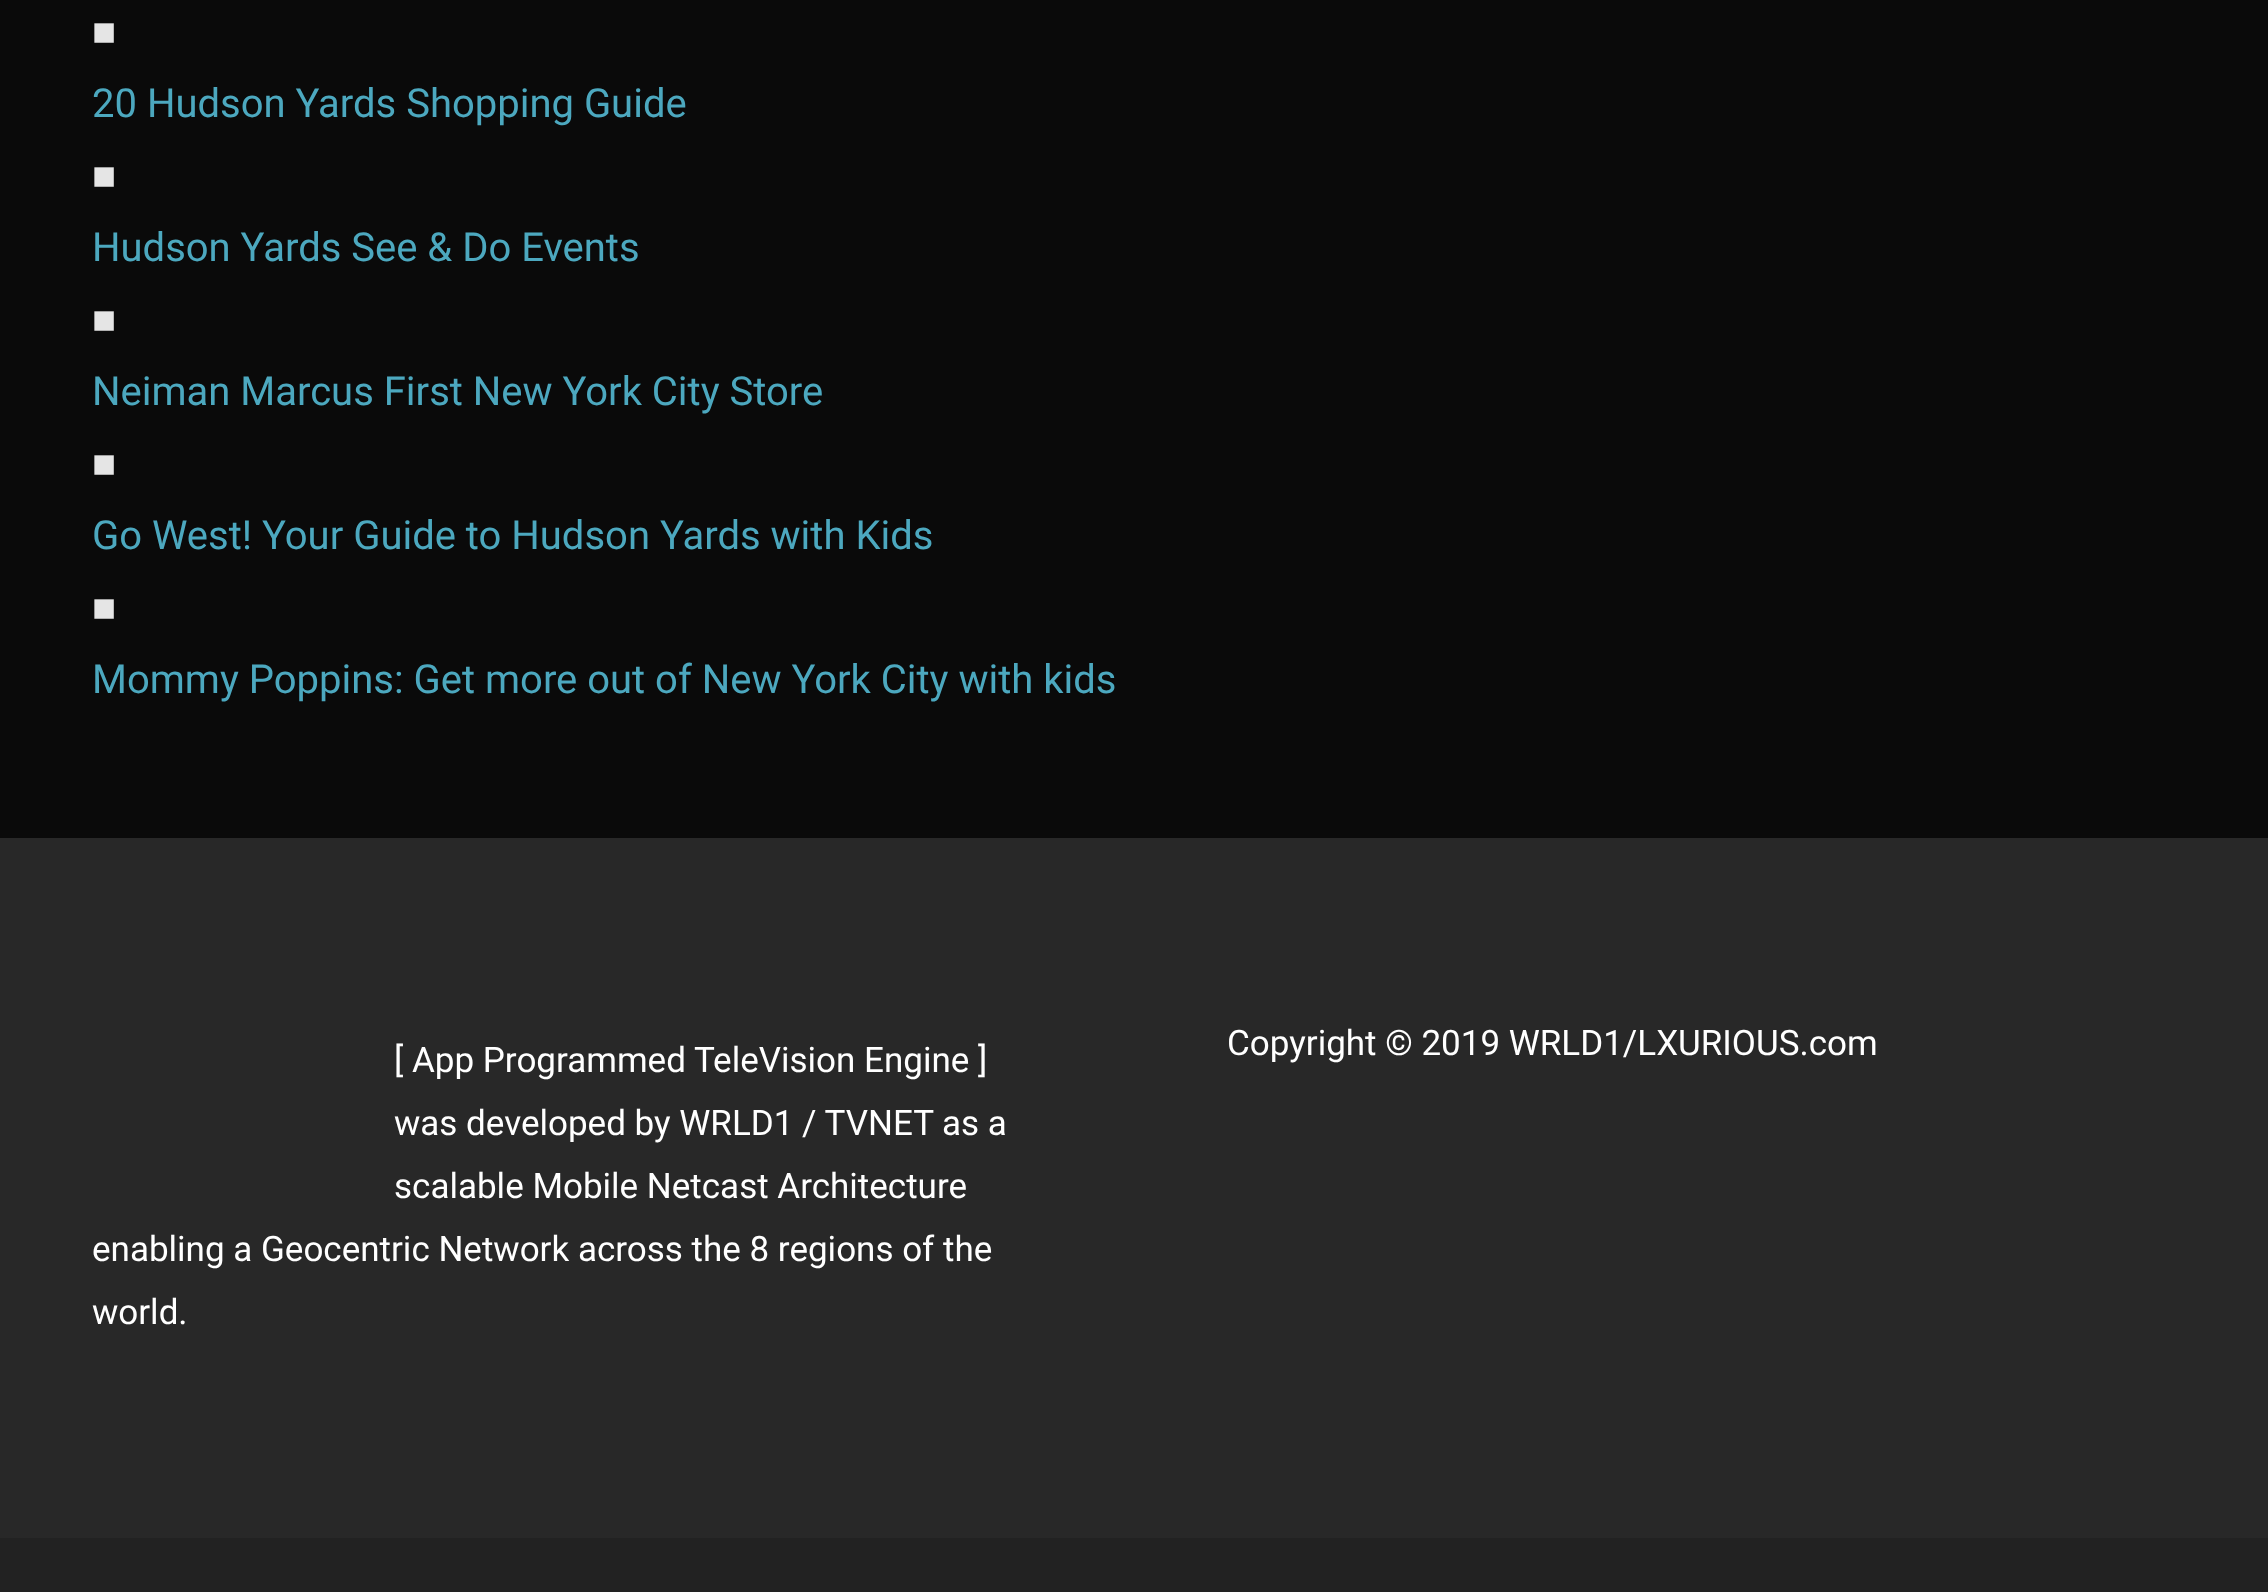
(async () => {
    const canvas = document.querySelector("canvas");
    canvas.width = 2268;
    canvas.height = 1592;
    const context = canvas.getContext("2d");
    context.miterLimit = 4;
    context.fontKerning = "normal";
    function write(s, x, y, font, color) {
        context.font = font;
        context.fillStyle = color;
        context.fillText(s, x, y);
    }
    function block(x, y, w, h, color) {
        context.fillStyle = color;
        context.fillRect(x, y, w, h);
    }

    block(0, 0, 2268, 1592, "rgb(10, 10, 10)");
    write("■", 92, 45, "40px Liberation Sans", "rgb(229, 229, 229)");
    write("20 Hudson Yards Shopping Guide", 92, 117, "40px Roboto", "rgb(76, 168, 191)");
    write("■", 92, 189, "40px Liberation Sans", "rgb(229, 229, 229)");
    write("Hudson Yards See & Do Events", 92, 261, "40px Roboto", "rgb(76, 168, 191)");
    write("■", 92, 333, "40px Liberation Sans", "rgb(229, 229, 229)");
    write("Neiman Marcus First New York City Store", 92, 405, "40px Roboto", "rgb(76, 168, 191)");
    write("■", 92, 477, "40px Liberation Sans", "rgb(229, 229, 229)");
    write("Go West! Your Guide to Hudson Yards with Kids", 92, 549, "40px Roboto", "rgb(76, 168, 191)");
    write("■", 92, 621, "40px Liberation Sans", "rgb(229, 229, 229)");
    write("Mommy Poppins: Get more out of New York City with kids", 92, 693, "40px Roboto", "rgb(76, 168, 191)");
    block(0, 838, 2268, 700, "rgb(40, 40, 40)");
    write("[ App Programmed TeleVision Engine ]", 394, 1072, "35px Roboto", "rgb(255, 255, 255)");
    write("was developed by WRLD1 / TVNET as a", 394, 1135, "35px Roboto", "rgb(255, 255, 255)");
    write("scalable Mobile Netcast Architecture", 394, 1198, "35px Roboto", "rgb(255, 255, 255)");
    write("enabling a Geocentric Network across the 8 regions of the", 92, 1261, "35px Roboto", "rgb(255, 255, 255)");
    write("world.", 92, 1324, "35px Roboto", "rgb(255, 255, 255)");
    write("Copyright © 2019 WRLD1/LXURIOUS.com", 1227, 1055, "35px Roboto", "rgb(255, 255, 255)");
    block(0, 1538, 2268, 54, "rgb(34, 34, 34)");
})();
